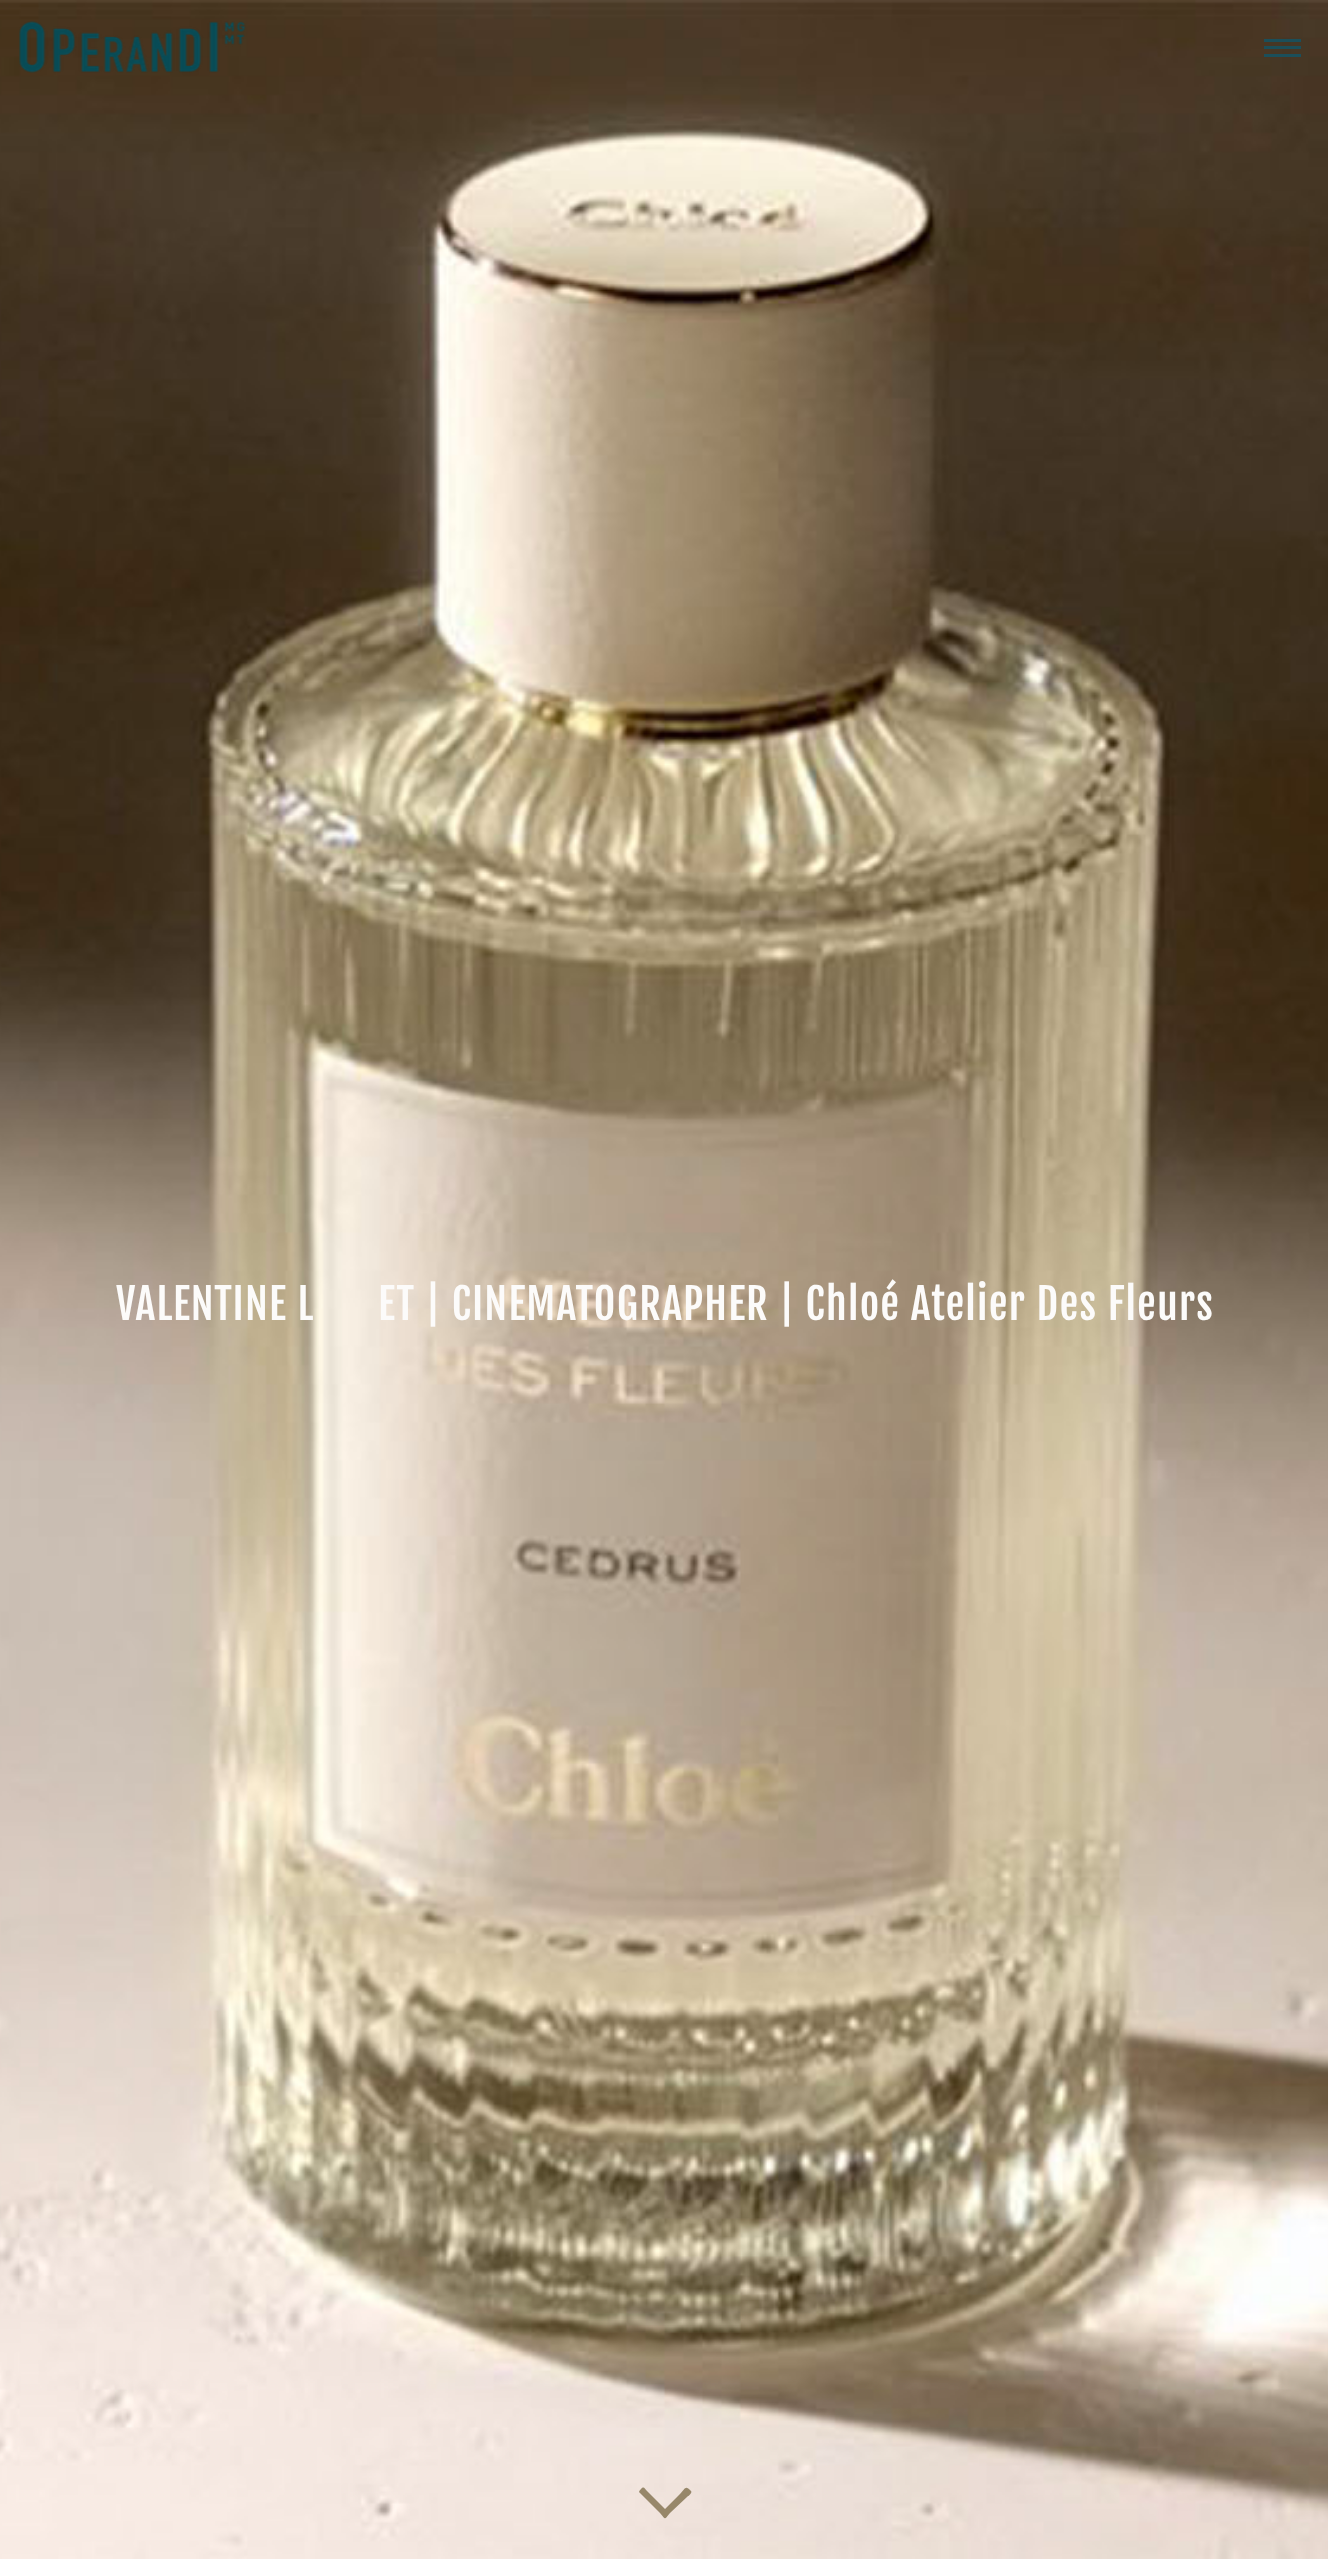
(async () => {
    const canvas = document.querySelector("canvas");
    canvas.width = 1328;
    canvas.height = 2559;
    const context = canvas.getContext("2d");
    context.miterLimit = 4;
    context.fontKerning = "normal";
    function write(s, x, y, font, color) {
        context.font = font;
        context.fillStyle = color;
        context.fillText(s, x, y);
    }
    function block(x, y, w, h, color) {
        context.fillStyle = color;
        context.fillRect(x, y, w, h);
    }
    async function photo(src, x, y, w, h) {
        const img = new Image();
        img.src = src;
        await img.decode();
        context.drawImage(img, x, y, w, h);
    }

    block(0, 0, 1328, 2559, "rgb(255, 255, 255)");
    await photo("media/2.png", 0, 0, 1328, 2559);
    await photo("media/1.png", 19, 21, 227, 52);
    block(1264, 39, 37, 3, "rgb(27, 79, 90)");
    block(1264, 46, 37, 3, "rgb(27, 79, 90)");
    block(1264, 54, 37, 3, "rgb(27, 79, 90)");
    context.letterSpacing = "1.25px";
    write("VALENTINE L", 116, 1320, "42px Fjalla One", "rgb(252, 251, 250)");
    write("ET | CINEMATOGRAPHER | Chloé Atelier Des Fleurs", 378, 1320, "42px Fjalla One", "rgb(252, 251, 250)");
    context.fillStyle = "rgba(145, 130, 99, 0.95)";
    context.beginPath();
    context.moveTo(691, 2491);
    context.bezierCurveTo(693, 2493, 687, 2497, 687, 2497);
    context.lineTo(670, 2513);
    context.bezierCurveTo(664, 2520, 666, 2520, 660, 2513);
    context.lineTo(640, 2493);
    context.bezierCurveTo(638, 2492, 640, 2490, 641, 2489);
    context.bezierCurveTo(644, 2486, 644, 2488, 648, 2492);
    context.lineTo(665, 2509);
    context.lineTo(679, 2495);
    context.bezierCurveTo(686, 2488, 685, 2485, 691, 2491);
    context.closePath();
    context.fill();
})();
